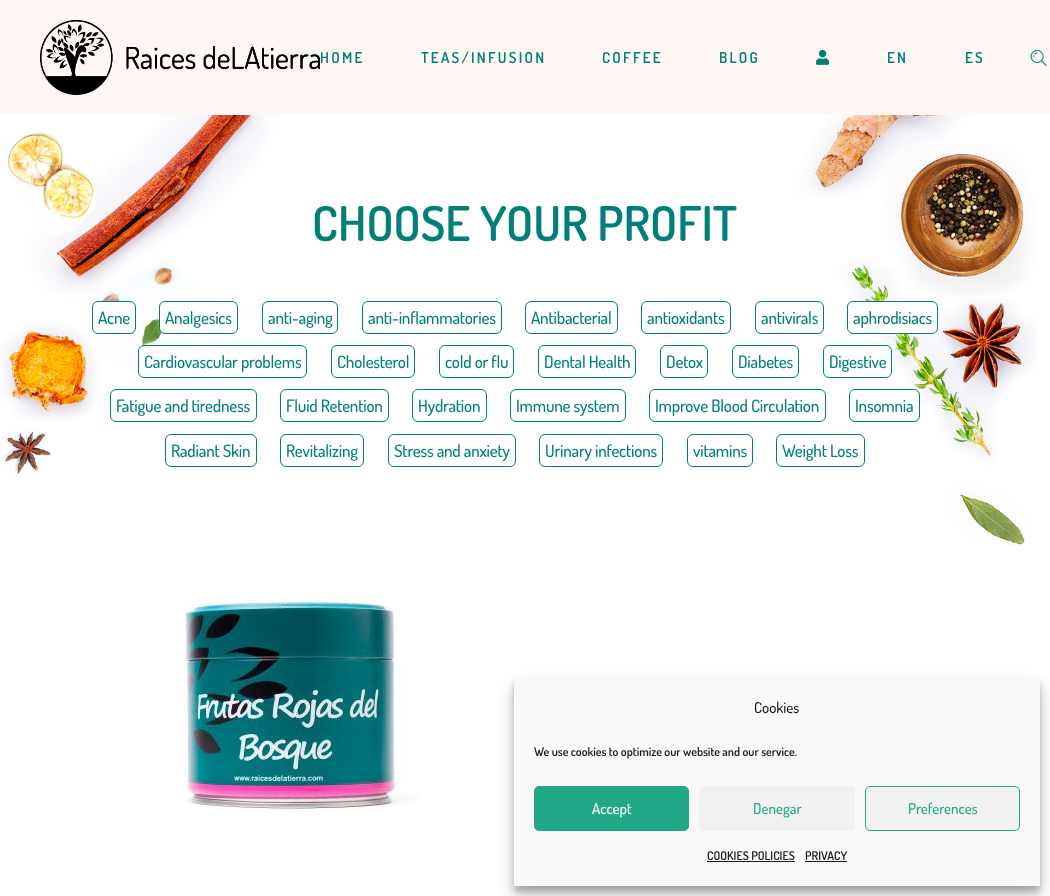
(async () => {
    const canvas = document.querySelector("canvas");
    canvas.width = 1050;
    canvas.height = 896;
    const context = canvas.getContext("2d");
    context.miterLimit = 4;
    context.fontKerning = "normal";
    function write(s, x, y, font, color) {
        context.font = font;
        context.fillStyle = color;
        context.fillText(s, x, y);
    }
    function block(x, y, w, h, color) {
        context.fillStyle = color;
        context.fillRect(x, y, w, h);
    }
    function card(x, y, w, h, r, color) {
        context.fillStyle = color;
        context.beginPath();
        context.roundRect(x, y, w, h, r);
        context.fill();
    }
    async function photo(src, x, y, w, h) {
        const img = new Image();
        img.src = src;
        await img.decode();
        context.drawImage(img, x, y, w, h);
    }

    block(0, 0, 1050, 896, "rgb(255, 255, 255)");
    await photo("media/1.png", 0, 115, 1037, 431);
    block(0, 0, 1050, 115, "rgb(255, 247, 244)");
    await photo("media/2.png", 40, 20, 280, 75);
    context.letterSpacing = "2.25px";
    write("HOME", 320, 63, "600 15px Dosis", "rgb(0, 128, 119)");
    write("TEAS/INFUSION", 421, 63, "600 15px Dosis", "rgb(0, 128, 119)");
    write("COFFEE", 602, 63, "600 15px Dosis", "rgb(0, 128, 119)");
    write("BLOG", 719, 63, "600 15px Dosis", "rgb(0, 128, 119)");
    await photo("media/3.png", 816, 49, 14, 16);
    write("EN", 887, 63, "600 15px Dosis", "rgb(0, 128, 119)");
    write("ES", 965, 63, "600 15px Dosis", "rgb(0, 128, 119)");
    await photo("media/4.png", 1030, 50, 17, 16);
    context.letterSpacing = "0px";
    write("CHOOSE YOUR PROFIT", 312, 241, "600 48px Dosis", "rgb(0, 128, 119)");
    context.fillStyle = "rgb(255, 255, 255)";
    context.beginPath();
    context.roundRect(92.5, 301.5, 43, 32, 5.5);
    context.fill();
    context.strokeStyle = "rgb(0, 128, 119)";
    context.stroke();
    context.letterSpacing = "-0.2px";
    write("Acne", 98, 324, "500 17px Dosis", "rgb(0, 128, 119)");
    context.fillStyle = "rgb(255, 255, 255)";
    context.beginPath();
    context.roundRect(159.5, 301.5, 78, 32, 5.5);
    context.fill();
    context.stroke();
    write("Analgesics", 165, 324, "500 17px Dosis", "rgb(0, 128, 119)");
    context.beginPath();
    context.roundRect(262.5, 301.5, 75, 32, 5.5);
    context.stroke();
    write("anti-aging", 268, 324, "500 17px Dosis", "rgb(0, 128, 119)");
    context.beginPath();
    context.roundRect(362.5, 301.5, 139, 32, 5.5);
    context.stroke();
    write("anti-inflammatories", 368, 324, "500 17px Dosis", "rgb(0, 128, 119)");
    context.beginPath();
    context.roundRect(525.5, 301.5, 92, 32, 5.5);
    context.stroke();
    write("Antibacterial", 531, 324, "500 17px Dosis", "rgb(0, 128, 119)");
    context.beginPath();
    context.roundRect(641.5, 301.5, 89, 32, 5.5);
    context.stroke();
    write("antioxidants", 647, 324, "500 17px Dosis", "rgb(0, 128, 119)");
    context.beginPath();
    context.roundRect(755.5, 301.5, 68, 32, 5.5);
    context.stroke();
    write("antivirals", 761, 324, "500 17px Dosis", "rgb(0, 128, 119)");
    context.fillStyle = "rgb(255, 255, 255)";
    context.beginPath();
    context.roundRect(847.5, 301.5, 90, 32, 5.5);
    context.fill();
    context.stroke();
    write("aphrodisiacs", 853, 324, "500 17px Dosis", "rgb(0, 128, 119)");
    context.fillStyle = "rgb(255, 255, 255)";
    context.beginPath();
    context.roundRect(138.5, 345.5, 168, 32, 5.5);
    context.fill();
    context.stroke();
    write("Cardiovascular problems", 144, 368, "500 17px Dosis", "rgb(0, 128, 119)");
    context.beginPath();
    context.roundRect(331.5, 345.5, 83, 32, 5.5);
    context.stroke();
    write("Cholesterol", 337, 368, "500 17px Dosis", "rgb(0, 128, 119)");
    context.beginPath();
    context.roundRect(439.5, 345.5, 74, 32, 5.5);
    context.stroke();
    write("cold or flu", 445, 368, "500 17px Dosis", "rgb(0, 128, 119)");
    context.beginPath();
    context.roundRect(538.5, 345.5, 97, 32, 5.5);
    context.stroke();
    write("Dental Health", 544, 368, "500 17px Dosis", "rgb(0, 128, 119)");
    context.beginPath();
    context.roundRect(660.5, 345.5, 47, 32, 5.5);
    context.stroke();
    write("Detox", 666, 368, "500 17px Dosis", "rgb(0, 128, 119)");
    context.beginPath();
    context.roundRect(732.5, 345.5, 66, 32, 5.5);
    context.stroke();
    write("Diabetes", 738, 368, "500 17px Dosis", "rgb(0, 128, 119)");
    context.fillStyle = "rgb(255, 255, 255)";
    context.beginPath();
    context.roundRect(823.5, 345.5, 68, 32, 5.5);
    context.fill();
    context.stroke();
    write("Digestive", 829, 368, "500 17px Dosis", "rgb(0, 128, 119)");
    context.beginPath();
    context.roundRect(110.5, 389.5, 146, 32, 5.5);
    context.stroke();
    write("Fatigue and tiredness", 116, 412, "500 17px Dosis", "rgb(0, 128, 119)");
    context.beginPath();
    context.roundRect(280.5, 389.5, 108, 32, 5.5);
    context.stroke();
    write("Fluid Retention", 286, 412, "500 17px Dosis", "rgb(0, 128, 119)");
    context.beginPath();
    context.roundRect(412.5, 389.5, 74, 32, 5.5);
    context.stroke();
    write("Hydration", 418, 412, "500 17px Dosis", "rgb(0, 128, 119)");
    context.beginPath();
    context.roundRect(510.5, 389.5, 115, 32, 5.5);
    context.stroke();
    write("Immune system", 516, 412, "500 17px Dosis", "rgb(0, 128, 119)");
    context.beginPath();
    context.roundRect(649.5, 389.5, 176, 32, 5.5);
    context.stroke();
    write("Improve Blood Circulation", 655, 412, "500 17px Dosis", "rgb(0, 128, 119)");
    context.fillStyle = "rgb(255, 255, 255)";
    context.beginPath();
    context.roundRect(849.5, 389.5, 70, 32, 5.5);
    context.fill();
    context.stroke();
    write("Insomnia", 855, 412, "500 17px Dosis", "rgb(0, 128, 119)");
    context.beginPath();
    context.roundRect(165.5, 434.5, 91, 32, 5.5);
    context.stroke();
    write("Radiant Skin", 171, 457, "500 17px Dosis", "rgb(0, 128, 119)");
    context.beginPath();
    context.roundRect(280.5, 434.5, 83, 32, 5.5);
    context.stroke();
    write("Revitalizing", 286, 457, "500 17px Dosis", "rgb(0, 128, 119)");
    context.beginPath();
    context.roundRect(388.5, 434.5, 127, 32, 5.5);
    context.stroke();
    write("Stress and anxiety", 394, 457, "500 17px Dosis", "rgb(0, 128, 119)");
    context.beginPath();
    context.roundRect(539.5, 434.5, 123, 32, 5.5);
    context.stroke();
    write("Urinary infections", 545, 457, "500 17px Dosis", "rgb(0, 128, 119)");
    context.beginPath();
    context.roundRect(687.5, 434.5, 65, 32, 5.5);
    context.stroke();
    write("vitamins", 693, 457, "500 17px Dosis", "rgb(0, 128, 119)");
    context.beginPath();
    context.roundRect(776.5, 434.5, 88, 32, 5.5);
    context.stroke();
    write("Weight Loss", 782, 457, "500 17px Dosis", "rgb(0, 128, 119)");
    await photo("media/5.png", 183, 596, 236, 216);
    context.fillStyle = "rgba(0, 0, 0, 0.23)";
    context.filter = "blur(3px)";
    context.beginPath();
    context.rect(514, 684, 526, 208);
    context.fill();
    context.filter = "none";
    context.fillStyle = "rgba(0, 0, 0, 0.19)";
    context.filter = "blur(10px)";
    context.beginPath();
    context.rect(514, 688, 526, 208);
    context.fill();
    context.filter = "none";
    block(514, 678, 526, 208, "rgb(249, 249, 249)");
    context.letterSpacing = "0px";
    write("Cookies", 754, 713, "500 15px Dosis", "rgb(25, 30, 35)");
    write("We use cookies to optimize our website and our service.", 534, 756, "600 12px 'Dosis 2'", "rgb(25, 30, 35)");
    context.fillStyle = "rgb(35, 168, 135)";
    context.beginPath();
    context.roundRect(534.5, 786.5, 154, 44, 4.5);
    context.fill();
    context.strokeStyle = "rgb(35, 168, 135)";
    context.stroke();
    write("Accept", 592, 814, "500 15px Dosis", "rgb(255, 255, 255)");
    card(699, 786, 156, 45, 5, "rgb(241, 241, 241)");
    write("Denegar", 753, 814, "500 15px Dosis", "rgb(35, 168, 135)");
    context.fillStyle = "rgb(241, 241, 241)";
    context.beginPath();
    context.roundRect(865.5, 786.5, 154, 44, 4.5);
    context.fill();
    context.stroke();
    write("Preferences", 908, 814, "500 15px Dosis", "rgb(35, 168, 135)");
    write("COOKIES POLICIES", 707, 860, "600 12px 'Dosis 2'", "rgb(25, 30, 35)");
    block(707, 861, 88, 1, "rgb(25, 30, 35)");
    write("PRIVACY", 805, 860, "600 12px 'Dosis 2'", "rgb(25, 30, 35)");
    block(805, 861, 42, 1, "rgb(25, 30, 35)");
})();
